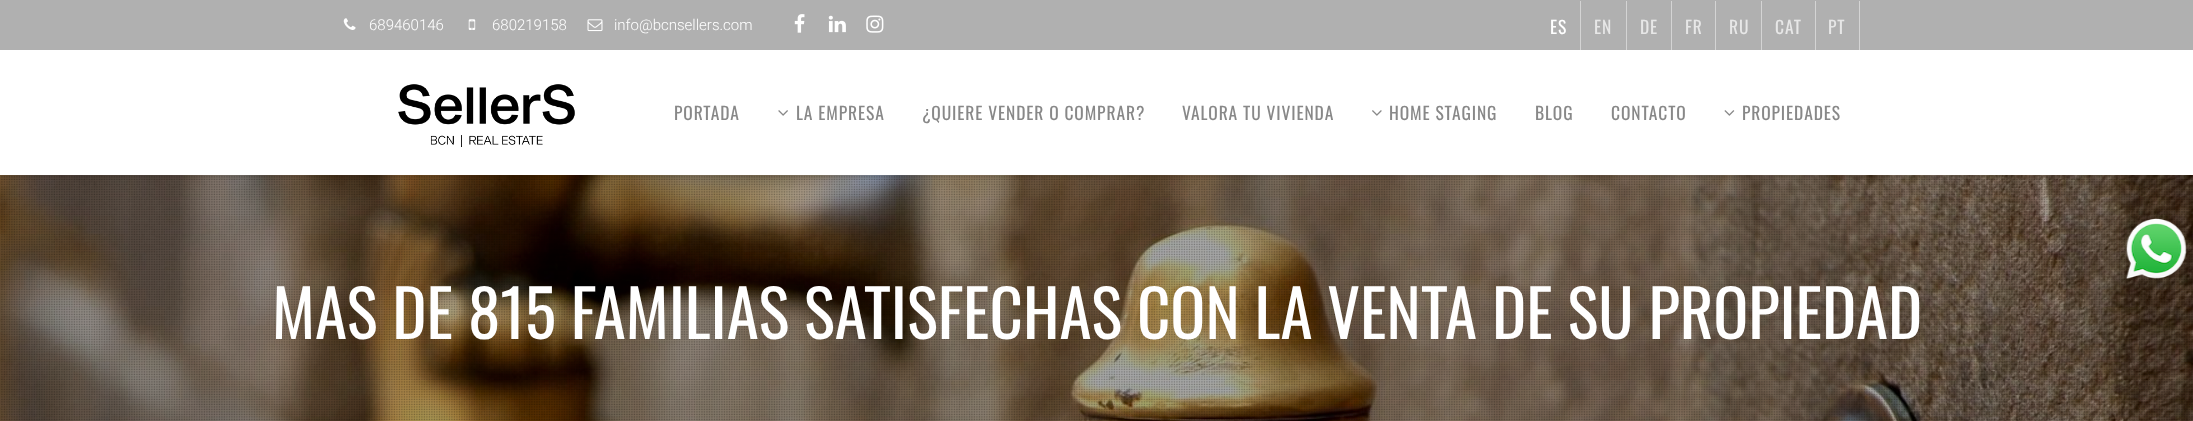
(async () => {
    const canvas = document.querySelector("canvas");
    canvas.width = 2193;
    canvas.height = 421;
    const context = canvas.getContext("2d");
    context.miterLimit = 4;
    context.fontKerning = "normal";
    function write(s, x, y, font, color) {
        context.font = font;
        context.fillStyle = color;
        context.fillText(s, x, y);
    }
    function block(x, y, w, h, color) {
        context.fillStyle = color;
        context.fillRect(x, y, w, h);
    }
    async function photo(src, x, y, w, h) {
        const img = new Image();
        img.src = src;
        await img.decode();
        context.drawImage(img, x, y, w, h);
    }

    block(0, 0, 2193, 421, "rgb(255, 255, 255)");
    await photo("media/11.png", 0, 175, 2193, 246);
    await photo("media/12.png", 1, 175, 2192, 246);
    context.save();
    context.beginPath();
    context.rect(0, 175, 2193, 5);
    context.clip();
    context.fillStyle = "rgba(0, 0, 0, 0.1)";
    context.filter = "blur(2.5px)";
    context.beginPath();
    context.rect(0, 53, 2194, 125);
    context.fill();
    context.filter = "none";
    context.restore();
    block(0, 0, 2193, 50, "rgb(176, 176, 176)");
    await photo("media/1.png", 343, 18, 13, 12);
    write("689460146", 369, 30, "300 15px Roboto", "rgb(255, 255, 255)");
    await photo("media/2.png", 468, 19, 8, 11);
    write("680219158", 492, 30, "300 15px Roboto", "rgb(255, 255, 255)");
    await photo("media/3.png", 587, 19, 16, 13);
    write("info@bcnsellers.com", 614, 30, "300 15px Roboto", "rgb(255, 255, 255)");
    await photo("media/4.png", 794, 14, 11, 19);
    await photo("media/5.png", 828, 15, 18, 18);
    await photo("media/6.png", 866, 15, 18, 18);
    block(1580, 1, 1, 50, "rgba(255, 255, 255, 0.46)");
    context.letterSpacing = "0.9px";
    write("ES", 1550, 34, "17.5px Oswald", "rgb(255, 255, 255)");
    block(1626, 1, 1, 50, "rgba(255, 255, 255, 0.46)");
    write("EN", 1594, 34, "17.5px Oswald", "rgb(231, 231, 231)");
    block(1671, 1, 1, 50, "rgba(255, 255, 255, 0.46)");
    write("DE", 1640, 34, "17.5px Oswald", "rgb(231, 231, 231)");
    block(1715, 1, 1, 50, "rgba(255, 255, 255, 0.46)");
    write("FR", 1685, 34, "17.5px Oswald", "rgb(231, 231, 231)");
    block(1761, 1, 1, 50, "rgba(255, 255, 255, 0.46)");
    write("RU", 1729, 34, "17.5px Oswald", "rgb(231, 231, 231)");
    block(1815, 1, 1, 50, "rgba(255, 255, 255, 0.46)");
    write("CAT", 1775, 34, "17.5px Oswald", "rgb(231, 231, 231)");
    block(1859, 1, 1, 50, "rgba(255, 255, 255, 0.46)");
    write("PT", 1828, 34, "17.5px Oswald", "rgb(231, 231, 231)");
    write("PORTADA", 674, 120, "17.5px Oswald", "rgb(136, 136, 136)");
    await photo("media/7.png", 778, 110, 10, 6);
    write("LA EMPRESA", 796, 120, "17.5px Oswald", "rgb(136, 136, 136)");
    write("¿QUIERE VENDER O COMPRAR?", 922, 120, "17.5px Oswald", "rgb(136, 136, 136)");
    write("VALORA TU VIVIENDA", 1182, 120, "17.5px Oswald", "rgb(136, 136, 136)");
    await photo("media/8.png", 1372, 110, 10, 6);
    write("HOME STAGING", 1389, 120, "17.5px Oswald", "rgb(136, 136, 136)");
    write("BLOG", 1535, 120, "17.5px Oswald", "rgb(136, 136, 136)");
    write("CONTACTO", 1611, 120, "17.5px Oswald", "rgb(136, 136, 136)");
    await photo("media/9.png", 1724, 110, 11, 6);
    write("PROPIEDADES", 1742, 120, "17.5px Oswald", "rgb(136, 136, 136)");
    await photo("media/10.png", 398, 84, 177, 63);
    context.letterSpacing = "0px";
    write("MAS DE 815 FAMILIAS SATISFECHAS CON LA VENTA DE SU PROPIEDAD", 272, 339, "65px Oswald", "rgb(255, 255, 255)");
    block(2119, 211, 74, 75, "rgba(0, 0, 0, 0.04)");
    await photo("media/13.png", 2125, 218, 62, 61);
})();
